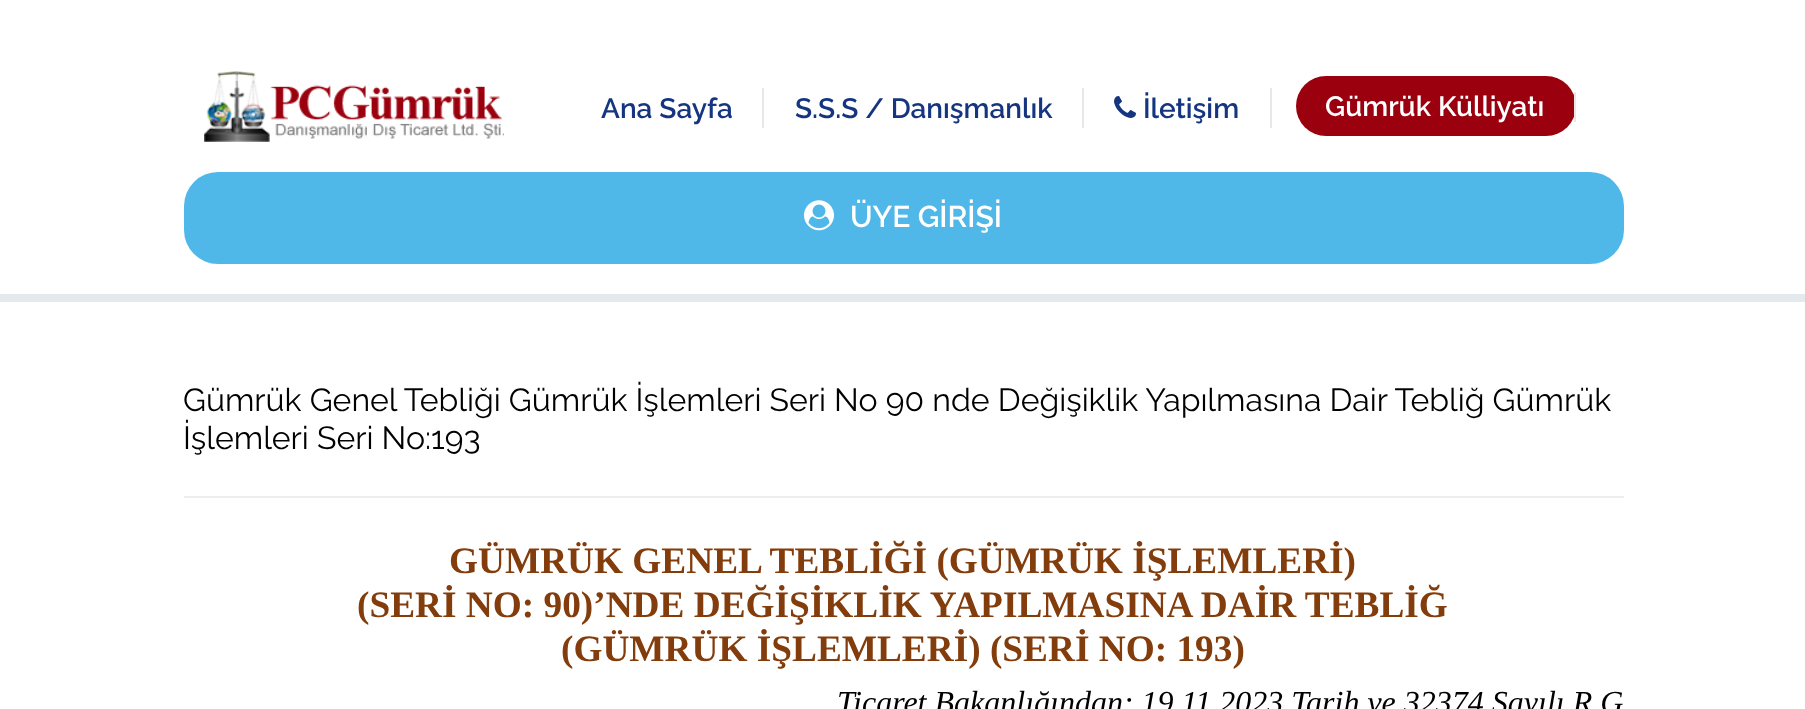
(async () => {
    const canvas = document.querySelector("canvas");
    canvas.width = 1805;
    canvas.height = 709;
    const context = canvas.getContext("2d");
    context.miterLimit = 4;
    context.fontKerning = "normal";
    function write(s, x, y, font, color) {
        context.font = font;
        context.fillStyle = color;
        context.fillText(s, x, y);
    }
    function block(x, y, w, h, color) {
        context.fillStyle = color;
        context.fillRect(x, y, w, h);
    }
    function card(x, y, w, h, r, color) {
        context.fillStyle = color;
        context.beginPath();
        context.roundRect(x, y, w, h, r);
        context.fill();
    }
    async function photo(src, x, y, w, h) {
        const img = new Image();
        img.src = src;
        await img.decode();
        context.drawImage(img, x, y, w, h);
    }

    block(0, 0, 1805, 709, "rgb(255, 255, 255)");
    block(0, 294, 1805, 8, "rgb(228, 233, 238)");
    await photo("media/1.png", 204, 71, 300, 71);
    block(762, 88, 2, 40, "rgb(231, 231, 231)");
    write("Ana Sayfa", 601, 118, "600 28px Raleway", "rgb(22, 53, 129)");
    block(1082, 88, 2, 40, "rgb(231, 231, 231)");
    write("S.S.S / Danışmanlık", 795, 118, "600 28px Raleway", "rgb(22, 53, 129)");
    block(1270, 88, 2, 40, "rgb(231, 231, 231)");
    await photo("media/2.png", 1114, 96, 22, 22);
    write("İletişim", 1143, 118, "600 28px Raleway", "rgb(22, 53, 129)");
    card(1296, 76, 280, 60, 30, "rgb(155, 0, 14)");
    block(1574, 92, 2, 30, "rgb(231, 231, 231)");
    write("Gümrük Külliyatı", 1325, 116, "600 28px Raleway", "rgb(255, 255, 255)");
    card(184, 172, 1440, 92, 34, "rgb(80, 184, 233)");
    await photo("media/3.png", 804, 200, 30, 31);
    write("ÜYE GİRİŞİ", 850, 227, "600 30px Raleway", "rgb(255, 255, 255)");
    write("Gümrük Genel Tebliği Gümrük İşlemleri Seri No 90 nde Değişiklik Yapılmasına Dair Tebliğ Gümrük", 183, 411, "32px Raleway", "rgb(0, 0, 0)");
    write("İşlemleri Seri No:193", 183, 449, "32px Raleway", "rgb(0, 0, 0)");
    block(184, 496, 1440, 2, "rgb(238, 238, 238)");
    write("GÜMRÜK GENEL TEBLİĞİ (GÜMRÜK İŞLEMLERİ)", 449, 573, "bold 37.3px Liberation Serif", "rgb(131, 60, 11)");
    write("(SERİ NO: 90)’NDE DEĞİŞİKLİK YAPILMASINA DAİR TEBLİĞ", 357, 617, "bold 37.3px Liberation Serif", "rgb(131, 60, 11)");
    write("(GÜMRÜK İŞLEMLERİ) (SERİ NO: 193)", 561, 661, "bold 37.3px Liberation Serif", "rgb(131, 60, 11)");
    write("Ticaret Bakanlığından: 19.11.2023 Tarih ve 32374 Sayılı R.G", 837, 713, "italic 32px Liberation Serif", "rgb(0, 0, 0)");
})();
